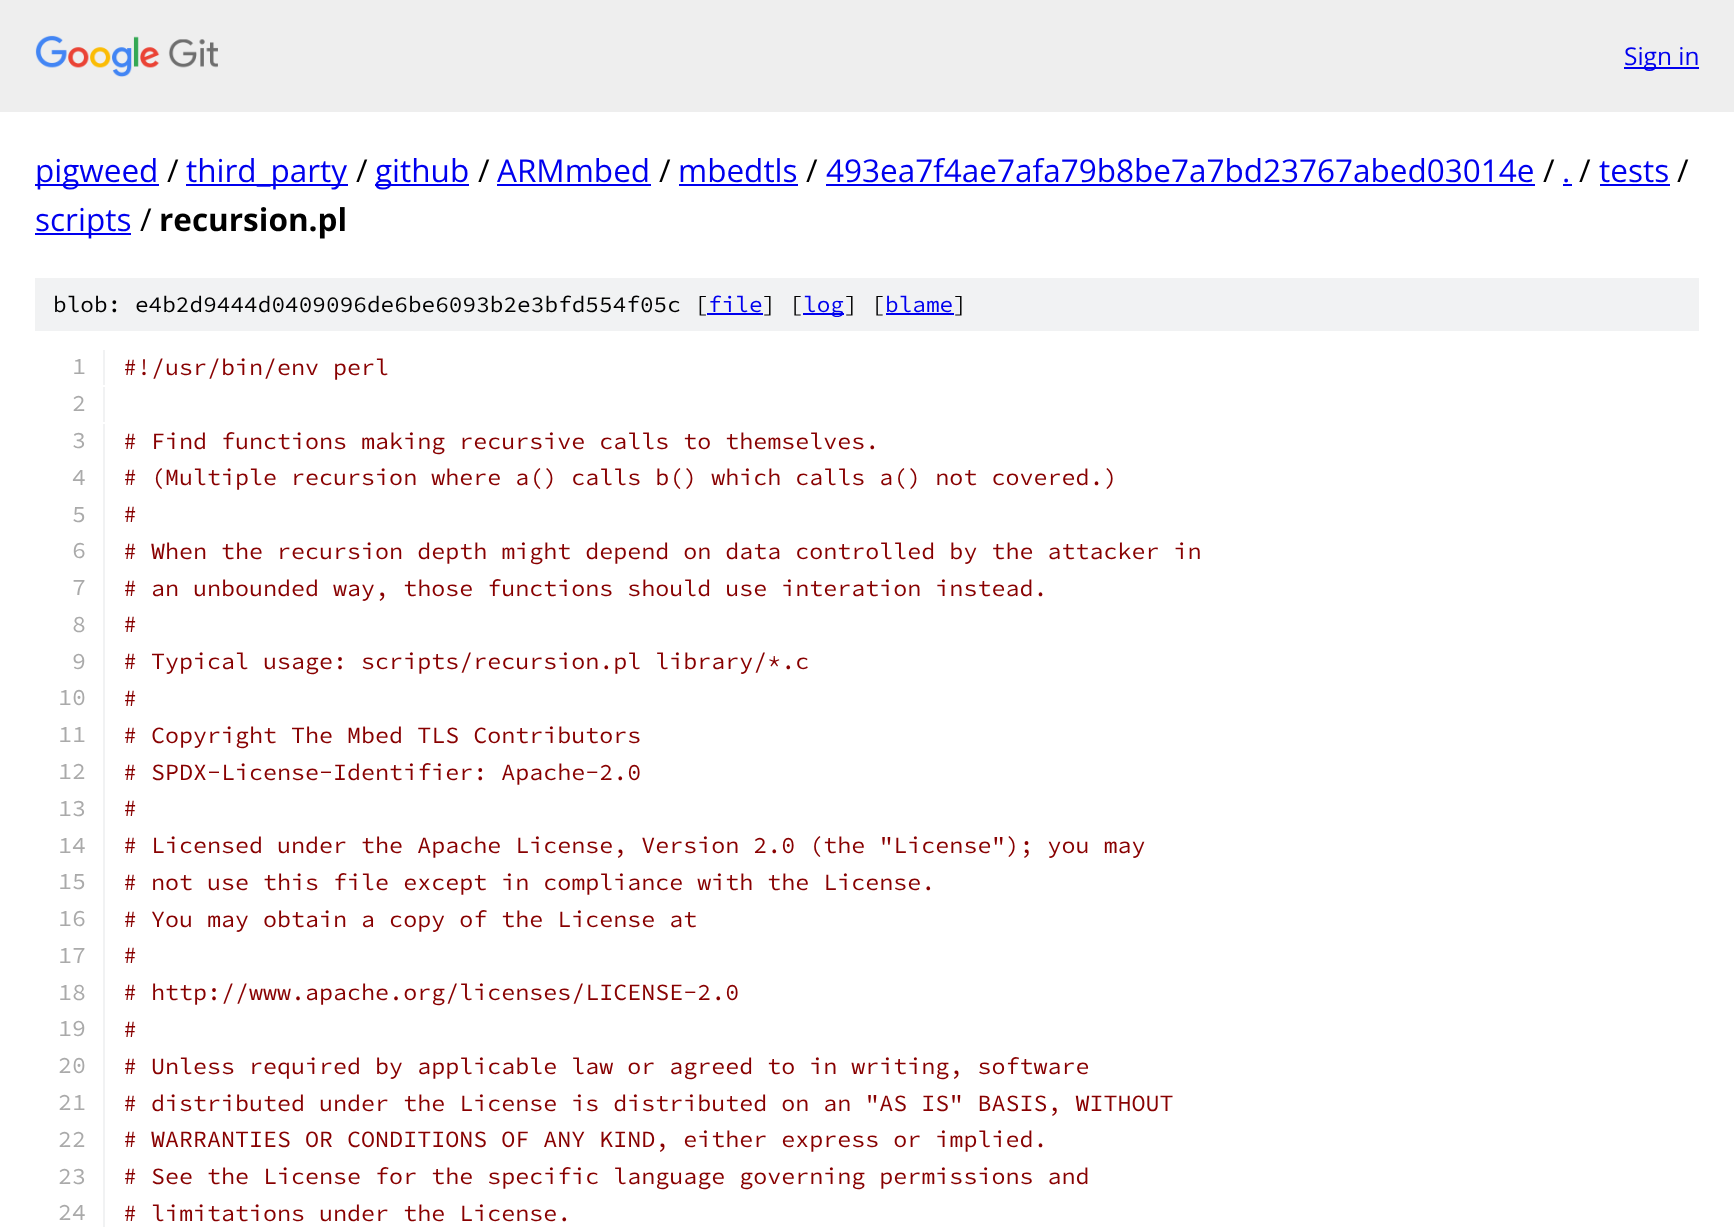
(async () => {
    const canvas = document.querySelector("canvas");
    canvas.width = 1734;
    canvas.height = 1227;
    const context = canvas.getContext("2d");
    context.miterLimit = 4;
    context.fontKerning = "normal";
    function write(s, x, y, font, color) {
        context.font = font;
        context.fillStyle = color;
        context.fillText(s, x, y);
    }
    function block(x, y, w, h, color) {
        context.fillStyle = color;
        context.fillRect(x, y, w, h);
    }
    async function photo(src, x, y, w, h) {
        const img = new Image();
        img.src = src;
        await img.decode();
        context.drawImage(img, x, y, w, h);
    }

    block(0, 0, 1734, 1227, "rgb(255, 255, 255)");
    block(0, 0, 1734, 112, "rgb(238, 238, 238)");
    await photo("media/1.png", 35, 35, 183, 42);
    block(1624, 67, 75, 2, "rgb(0, 0, 238)");
    write("Sign in", 1624, 65, "24.5px Open Sans", "rgb(0, 0, 238)");
    block(35, 184, 124, 2, "rgb(0, 0, 238)");
    write("pigweed", 35, 182, "31.5px Open Sans", "rgb(0, 0, 238)");
    write("/", 167, 182, "31.5px Open Sans", "rgb(0, 0, 0)");
    block(186, 184, 162, 2, "rgb(0, 0, 238)");
    write("third_party", 186, 182, "31.5px Open Sans", "rgb(0, 0, 238)");
    write("/", 356, 182, "31.5px Open Sans", "rgb(0, 0, 0)");
    block(375, 184, 94, 2, "rgb(0, 0, 238)");
    write("github", 375, 182, "31.5px Open Sans", "rgb(0, 0, 238)");
    write("/", 478, 182, "31.5px Open Sans", "rgb(0, 0, 0)");
    write("ARMmbed", 497, 182, "31.5px Open Sans", "rgb(0, 0, 238)");
    block(497, 184, 154, 2, "rgb(0, 0, 238)");
    write("/", 659, 182, "31.5px Open Sans", "rgb(0, 0, 0)");
    write("mbedtls", 678, 182, "31.5px Open Sans", "rgb(0, 0, 238)");
    block(679, 184, 119, 2, "rgb(0, 0, 238)");
    write("/", 806, 182, "31.5px Open Sans", "rgb(0, 0, 0)");
    write("493ea7f4ae7afa79b8be7a7bd23767abed03014e", 826, 182, "31.5px Open Sans", "rgb(0, 0, 238)");
    block(826, 184, 709, 2, "rgb(0, 0, 238)");
    write("/", 1543, 182, "31.5px Open Sans", "rgb(0, 0, 0)");
    write(".", 1562, 182, "31.5px Open Sans", "rgb(0, 0, 238)");
    block(1563, 184, 9, 2, "rgb(0, 0, 238)");
    write("/", 1579, 182, "31.5px Open Sans", "rgb(0, 0, 0)");
    write("tests", 1599, 182, "31.5px Open Sans", "rgb(0, 0, 238)");
    block(1600, 184, 70, 2, "rgb(0, 0, 238)");
    write("/", 1677, 182, "31.5px Open Sans", "rgb(0, 0, 0)");
    block(35, 233, 96, 2, "rgb(0, 0, 238)");
    write("scripts", 35, 231, "31.5px Open Sans", "rgb(0, 0, 238)");
    write("/", 140, 231, "31.5px Open Sans", "rgb(0, 0, 0)");
    write("recursion.pl", 159, 231, "bold 31.5px Open Sans", "rgb(0, 0, 0)");
    block(35, 278, 1664, 53, "rgb(241, 242, 243)");
    write("blob: e4b2d9444d0409096de6be6093b2e3bfd554f05c [", 53, 312, "200 22.75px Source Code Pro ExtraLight", "rgb(0, 0, 0)");
    write("file", 708, 312, "200 22.75px Source Code Pro ExtraLight", "rgb(0, 0, 238)");
    block(707, 313, 56, 2, "rgb(0, 0, 238)");
    write("] [", 762, 312, "200 22.75px Source Code Pro ExtraLight", "rgb(0, 0, 0)");
    block(803, 313, 41, 2, "rgb(0, 0, 238)");
    write("log", 803, 312, "200 22.75px Source Code Pro ExtraLight", "rgb(0, 0, 238)");
    write("] [", 844, 312, "200 22.75px Source Code Pro ExtraLight", "rgb(0, 0, 0)");
    write("blame", 885, 312, "200 22.75px Source Code Pro ExtraLight", "rgb(0, 0, 238)");
    block(886, 313, 68, 2, "rgb(0, 0, 238)");
    write("]", 953, 312, "200 22.75px Source Code Pro ExtraLight", "rgb(0, 0, 0)");
    block(103, 350, 2, 35, "rgb(241, 242, 243)");
    write("1", 72, 374, "200 23.35px Source Code Pro ExtraLight", "rgb(170, 170, 170)");
    write("#!/usr/bin/env perl", 123, 375, "200 23.35px Source Code Pro ExtraLight", "rgb(136, 0, 0)");
    block(103, 387, 2, 35, "rgb(241, 242, 243)");
    write("2", 72, 411, "200 23.35px Source Code Pro ExtraLight", "rgb(170, 170, 170)");
    block(103, 424, 2, 803, "rgb(241, 242, 243)");
    write("3", 72, 448, "200 23.35px Source Code Pro ExtraLight", "rgb(170, 170, 170)");
    write("# Find functions making recursive calls to themselves.", 123, 449, "200 23.35px Source Code Pro ExtraLight", "rgb(136, 0, 0)");
    write("4", 72, 485, "200 23.35px Source Code Pro ExtraLight", "rgb(170, 170, 170)");
    write("# (Multiple recursion where a() calls b() which calls a() not covered.)", 123, 485, "200 23.35px Source Code Pro ExtraLight", "rgb(136, 0, 0)");
    write("5", 72, 522, "200 23.35px Source Code Pro ExtraLight", "rgb(170, 170, 170)");
    write("#", 123, 522, "200 23.35px Source Code Pro ExtraLight", "rgb(136, 0, 0)");
    write("6", 72, 558, "200 23.35px Source Code Pro ExtraLight", "rgb(170, 170, 170)");
    write("# When the recursion depth might depend on data controlled by the attacker in", 123, 559, "200 23.35px Source Code Pro ExtraLight", "rgb(136, 0, 0)");
    write("7", 72, 595, "200 23.35px Source Code Pro ExtraLight", "rgb(170, 170, 170)");
    write("# an unbounded way, those functions should use interation instead.", 123, 596, "200 23.35px Source Code Pro ExtraLight", "rgb(136, 0, 0)");
    write("8", 72, 632, "200 23.35px Source Code Pro ExtraLight", "rgb(170, 170, 170)");
    write("#", 123, 632, "200 23.35px Source Code Pro ExtraLight", "rgb(136, 0, 0)");
    write("9", 72, 669, "200 23.35px Source Code Pro ExtraLight", "rgb(170, 170, 170)");
    write("# Typical usage: scripts/recursion.pl library/*.c", 123, 669, "200 23.35px Source Code Pro ExtraLight", "rgb(136, 0, 0)");
    write("10", 58, 705, "200 23.35px Source Code Pro ExtraLight", "rgb(170, 170, 170)");
    write("#", 123, 706, "200 23.35px Source Code Pro ExtraLight", "rgb(136, 0, 0)");
    write("11", 58, 742, "200 23.35px Source Code Pro ExtraLight", "rgb(170, 170, 170)");
    write("# Copyright The Mbed TLS Contributors", 123, 743, "200 23.35px Source Code Pro ExtraLight", "rgb(136, 0, 0)");
    write("12", 58, 779, "200 23.35px Source Code Pro ExtraLight", "rgb(170, 170, 170)");
    write("# SPDX-License-Identifier: Apache-2.0", 123, 780, "200 23.35px Source Code Pro ExtraLight", "rgb(136, 0, 0)");
    write("13", 58, 816, "200 23.35px Source Code Pro ExtraLight", "rgb(170, 170, 170)");
    write("#", 123, 816, "200 23.35px Source Code Pro ExtraLight", "rgb(136, 0, 0)");
    write("14", 58, 853, "200 23.35px Source Code Pro ExtraLight", "rgb(170, 170, 170)");
    write("# Licensed under the Apache License, Version 2.0 (the \"License\"); you may", 123, 853, "200 23.35px Source Code Pro ExtraLight", "rgb(136, 0, 0)");
    write("15", 58, 889, "200 23.35px Source Code Pro ExtraLight", "rgb(170, 170, 170)");
    write("# not use this file except in compliance with the License.", 123, 890, "200 23.35px Source Code Pro ExtraLight", "rgb(136, 0, 0)");
    write("16", 58, 926, "200 23.35px Source Code Pro ExtraLight", "rgb(170, 170, 170)");
    write("# You may obtain a copy of the License at", 123, 927, "200 23.35px Source Code Pro ExtraLight", "rgb(136, 0, 0)");
    write("17", 58, 963, "200 23.35px Source Code Pro ExtraLight", "rgb(170, 170, 170)");
    write("#", 123, 963, "200 23.35px Source Code Pro ExtraLight", "rgb(136, 0, 0)");
    write("18", 58, 1000, "200 23.35px Source Code Pro ExtraLight", "rgb(170, 170, 170)");
    write("# http://www.apache.org/licenses/LICENSE-2.0", 123, 1000, "200 23.35px Source Code Pro ExtraLight", "rgb(136, 0, 0)");
    write("19", 58, 1036, "200 23.35px Source Code Pro ExtraLight", "rgb(170, 170, 170)");
    write("#", 123, 1037, "200 23.35px Source Code Pro ExtraLight", "rgb(136, 0, 0)");
    write("20", 58, 1073, "200 23.35px Source Code Pro ExtraLight", "rgb(170, 170, 170)");
    write("# Unless required by applicable law or agreed to in writing, software", 123, 1074, "200 23.35px Source Code Pro ExtraLight", "rgb(136, 0, 0)");
    write("21", 58, 1110, "200 23.35px Source Code Pro ExtraLight", "rgb(170, 170, 170)");
    write("# distributed under the License is distributed on an \"AS IS\" BASIS, WITHOUT", 123, 1111, "200 23.35px Source Code Pro ExtraLight", "rgb(136, 0, 0)");
    write("22", 58, 1147, "200 23.35px Source Code Pro ExtraLight", "rgb(170, 170, 170)");
    write("# WARRANTIES OR CONDITIONS OF ANY KIND, either express or implied.", 123, 1147, "200 23.35px Source Code Pro ExtraLight", "rgb(136, 0, 0)");
    write("23", 58, 1184, "200 23.35px Source Code Pro ExtraLight", "rgb(170, 170, 170)");
    write("# See the License for the specific language governing permissions and", 123, 1184, "200 23.35px Source Code Pro ExtraLight", "rgb(136, 0, 0)");
    write("24", 58, 1220, "200 23.35px Source Code Pro ExtraLight", "rgb(170, 170, 170)");
    write("# limitations under the License.", 123, 1221, "200 23.35px Source Code Pro ExtraLight", "rgb(136, 0, 0)");
})();
